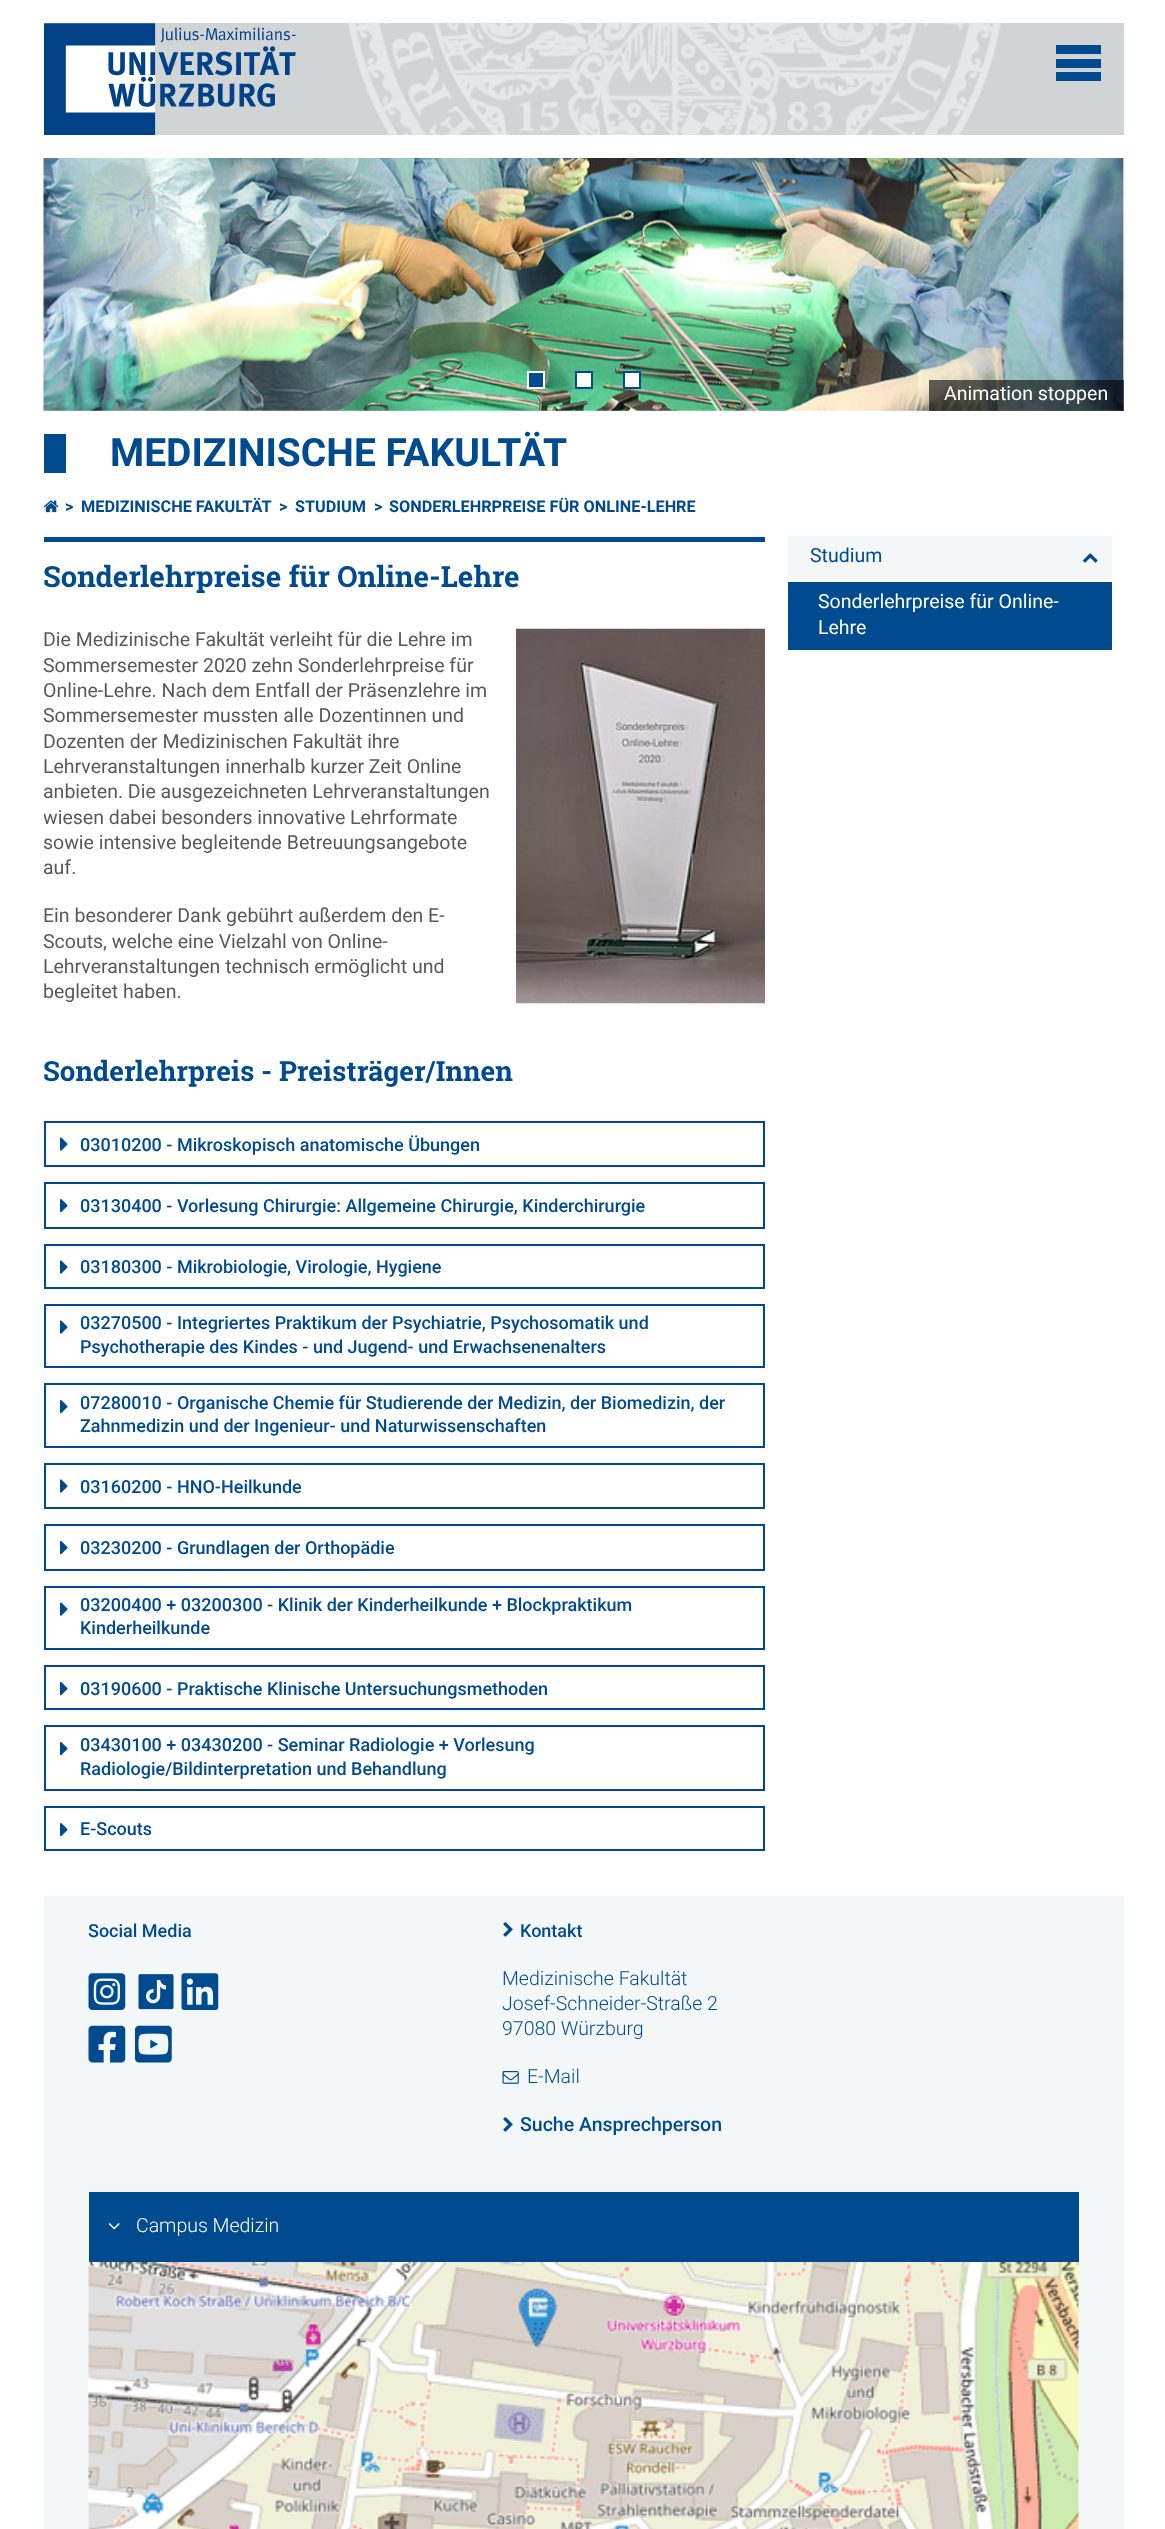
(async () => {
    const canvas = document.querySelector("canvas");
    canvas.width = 1165;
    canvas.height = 2529;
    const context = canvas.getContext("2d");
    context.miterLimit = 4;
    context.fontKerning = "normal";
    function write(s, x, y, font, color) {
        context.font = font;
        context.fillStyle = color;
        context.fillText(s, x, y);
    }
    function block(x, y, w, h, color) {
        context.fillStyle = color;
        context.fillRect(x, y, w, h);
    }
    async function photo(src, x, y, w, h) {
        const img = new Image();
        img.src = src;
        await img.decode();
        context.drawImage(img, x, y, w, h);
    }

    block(0, 0, 1165, 2529, "rgb(255, 255, 255)");
    block(44, 23, 1080, 112, "rgb(209, 212, 212)");
    await photo("media/1.png", 348, 22, 653, 113);
    await photo("media/2.png", 44, 23, 252, 112);
    block(1056, 45, 45, 9, "rgb(0, 74, 143)");
    block(1056, 59, 45, 9, "rgb(0, 74, 143)");
    block(1056, 72, 45, 9, "rgb(0, 74, 143)");
    await photo("media/3.png", 43, 158, 1081, 253);
    await photo("media/4.png", 1123, 158, 1, 253);
    context.beginPath();
    context.rect(528, 372, 16, 16);
    context.fill();
    context.strokeStyle = "rgb(255, 255, 255)";
    context.lineWidth = 2;
    context.stroke();
    context.fillStyle = "rgb(255, 255, 255)";
    context.beginPath();
    context.rect(576, 372, 16, 16);
    context.fill();
    context.strokeStyle = "rgb(0, 74, 143)";
    context.stroke();
    context.beginPath();
    context.rect(624, 372, 16, 16);
    context.fill();
    context.stroke();
    block(929, 380, 195, 31, "rgba(0, 0, 0, 0.6)");
    write("Animation stoppen", 944, 400, "19.5px Roboto", "rgb(255, 255, 255)");
    block(44, 434, 22, 39, "rgb(0, 74, 143)");
    write("MEDIZINISCHE FAKULTÄT", 110, 466, "bold 39px Roboto", "rgb(0, 74, 143)");
    block(44, 537, 721, 5, "rgb(0, 74, 143)");
    await photo("media/5.png", 43, 500, 16, 13);
    write(">", 65, 512, "bold 16.25px Roboto", "rgb(0, 74, 143)");
    write("MEDIZINISCHE FAKULTÄT", 81, 512, "bold 16.25px Roboto", "rgb(0, 74, 143)");
    write(">", 279, 512, "bold 16.25px Roboto", "rgb(0, 74, 143)");
    write("STUDIUM", 295, 512, "bold 16.25px Roboto", "rgb(0, 74, 143)");
    write(">", 374, 512, "bold 16.25px Roboto", "rgb(0, 74, 143)");
    write("SONDERLEHRPREISE FÜR ONLINE-LEHRE", 389, 512, "bold 16.25px Roboto", "rgb(0, 74, 143)");
    write("Sonderlehrpreise für Online-Lehre", 43, 587, "bold 29.25px Roboto Slab", "rgb(0, 74, 143)");
    write("Die Medizinische Fakultät verleiht für die Lehre im", 43, 646, "19.5px Roboto", "rgb(89, 89, 89)");
    write("Sommersemester 2020 zehn Sonderlehrpreise für", 43, 672, "19.5px Roboto", "rgb(89, 89, 89)");
    write("Online-Lehre. Nach dem Entfall der Präsenzlehre im", 43, 697, "19.5px Roboto", "rgb(89, 89, 89)");
    write("Sommersemester mussten alle Dozentinnen und", 43, 722, "19.5px Roboto", "rgb(89, 89, 89)");
    write("Dozenten der Medizinischen Fakultät ihre", 43, 748, "19.5px Roboto", "rgb(89, 89, 89)");
    write("Lehrveranstaltungen innerhalb kurzer Zeit Online", 43, 773, "19.5px Roboto", "rgb(89, 89, 89)");
    write("anbieten. Die ausgezeichneten Lehrveranstaltungen", 43, 798, "19.5px Roboto", "rgb(89, 89, 89)");
    context.save();
    context.beginPath();
    context.rect(44, 629, 721, 400);
    context.clip();
    write("wiesen dabei besonders innovative Lehrformate", 43, 824, "19.5px Roboto", "rgb(89, 89, 89)");
    context.restore();
    write("sowie intensive begleitende Betreuungsangebote", 43, 849, "19.5px Roboto", "rgb(89, 89, 89)");
    write("auf.", 43, 874, "19.5px Roboto", "rgb(89, 89, 89)");
    write("Ein besonderer Dank gebührt außerdem den E-", 43, 922, "19.5px Roboto", "rgb(89, 89, 89)");
    write("Scouts, welche eine Vielzahl von Online-", 43, 948, "19.5px Roboto", "rgb(89, 89, 89)");
    write("Lehrveranstaltungen technisch ermöglicht und", 43, 973, "19.5px Roboto", "rgb(89, 89, 89)");
    write("begleitet haben.", 43, 998, "19.5px Roboto", "rgb(89, 89, 89)");
    await photo("media/6.png", 516, 628, 249, 376);
    write("Sonderlehrpreis - Preisträger/Innen", 43, 1081, "bold 27.75px Roboto Slab", "rgb(0, 74, 143)");
    context.strokeRect(45, 1122, 719, 44);
    await photo("media/7.png", 60, 1137, 8, 14);
    write("03010200 - Mikroskopisch anatomische Übungen", 80, 1151, "500 18px Roboto", "rgb(0, 74, 143)");
    context.strokeRect(45, 1183, 719, 45);
    await photo("media/8.png", 60, 1198, 8, 15);
    write("03130400 - Vorlesung Chirurgie: Allgemeine Chirurgie, Kinderchirurgie", 80, 1212, "500 18px Roboto", "rgb(0, 74, 143)");
    context.strokeRect(45, 1245, 719, 43);
    await photo("media/7.png", 60, 1260, 8, 14);
    write("03180300 - Mikrobiologie, Virologie, Hygiene", 80, 1273, "500 18px Roboto", "rgb(0, 74, 143)");
    context.strokeRect(45, 1305, 719, 62);
    await photo("media/7.png", 60, 1320, 8, 14);
    write("03270500 - Integriertes Praktikum der Psychiatrie, Psychosomatik und", 80, 1329, "500 18px Roboto", "rgb(0, 74, 143)");
    write("Psychotherapie des Kindes - und Jugend- und Erwachsenenalters", 80, 1353, "500 18px Roboto", "rgb(0, 74, 143)");
    context.strokeRect(45, 1384, 719, 63);
    await photo("media/8.png", 60, 1399, 8, 15);
    write("07280010 - Organische Chemie für Studierende der Medizin, der Biomedizin, der", 80, 1409, "500 18px Roboto", "rgb(0, 74, 143)");
    write("Zahnmedizin und der Ingenieur- und Naturwissenschaften", 80, 1432, "500 18px Roboto", "rgb(0, 74, 143)");
    context.strokeRect(45, 1464, 719, 44);
    await photo("media/7.png", 60, 1479, 8, 14);
    write("03160200 - HNO-Heilkunde", 80, 1493, "500 18px Roboto", "rgb(0, 74, 143)");
    context.strokeRect(45, 1525, 719, 45);
    await photo("media/8.png", 60, 1540, 8, 15);
    write("03230200 - Grundlagen der Orthopädie", 80, 1554, "500 18px Roboto", "rgb(0, 74, 143)");
    context.strokeRect(45, 1587, 719, 62);
    await photo("media/7.png", 60, 1602, 8, 14);
    write("03200400 + 03200300 - Klinik der Kinderheilkunde + Blockpraktikum", 80, 1611, "500 18px Roboto", "rgb(0, 74, 143)");
    write("Kinderheilkunde", 80, 1634, "500 18px Roboto", "rgb(0, 74, 143)");
    context.strokeRect(45, 1666, 719, 43);
    await photo("media/8.png", 60, 1681, 8, 15);
    write("03190600 - Praktische Klinische Untersuchungsmethoden", 80, 1695, "500 18px Roboto", "rgb(0, 74, 143)");
    context.strokeRect(45, 1726, 719, 64);
    await photo("media/8.png", 60, 1741, 8, 15);
    write("03430100 + 03430200 - Seminar Radiologie + Vorlesung", 80, 1751, "500 18px Roboto", "rgb(0, 74, 143)");
    write("Radiologie/Bildinterpretation und Behandlung", 80, 1775, "500 18px Roboto", "rgb(0, 74, 143)");
    context.strokeRect(45, 1807, 719, 43);
    await photo("media/8.png", 60, 1822, 8, 15);
    write("E-Scouts", 80, 1835, "500 18px Roboto", "rgb(0, 74, 143)");
    block(788, 536, 324, 43, "rgb(244, 247, 247)");
    write("Studium", 810, 562, "19.5px Roboto", "rgb(0, 74, 143)");
    await photo("media/9.png", 1083, 553, 15, 10);
    block(788, 582, 324, 68, "rgb(0, 74, 143)");
    write("Sonderlehrpreise für Online-", 818, 608, "19.5px Roboto", "rgb(255, 255, 255)");
    write("Lehre", 818, 634, "19.5px Roboto", "rgb(255, 255, 255)");
    block(44, 1896, 1080, 633, "rgb(244, 247, 247)");
    write("Social Media", 88, 1937, "500 18px Roboto", "rgb(0, 74, 143)");
    await photo("media/10.png", 88, 1973, 38, 37);
    await photo("media/11.png", 138, 1974, 36, 36);
    await photo("media/12.png", 181, 1973, 38, 37);
    await photo("media/13.png", 88, 2025, 38, 38);
    await photo("media/14.png", 135, 2025, 37, 38);
    await photo("media/15.png", 503, 1922, 10, 15);
    write("Kontakt", 520, 1937, "500 18px Roboto", "rgb(0, 74, 143)");
    write("Medizinische Fakultät", 502, 1985, "300 19.5px Roboto", "rgb(0, 74, 143)");
    write("Josef-Schneider-Straße 2", 502, 2010, "300 19.5px Roboto", "rgb(0, 74, 143)");
    write("97080 Würzburg", 502, 2035, "300 19.5px Roboto", "rgb(0, 74, 143)");
    await photo("media/16.png", 502, 2071, 17, 13);
    write("E-Mail", 527, 2083, "300 19.5px Roboto", "rgb(0, 74, 143)");
    await photo("media/15.png", 503, 2117, 10, 15);
    write("Suche Ansprechperson", 520, 2131, "500 19.5px Roboto", "rgb(0, 74, 143)");
    block(89, 2192, 990, 70, "rgb(0, 74, 143)");
    await photo("media/17.png", 108, 2223, 12, 7);
    write("Campus Medizin", 136, 2232, "300 19.5px Roboto", "rgb(255, 255, 255)");
    await photo("media/18.png", 88, 2262, 991, 267);
})();
